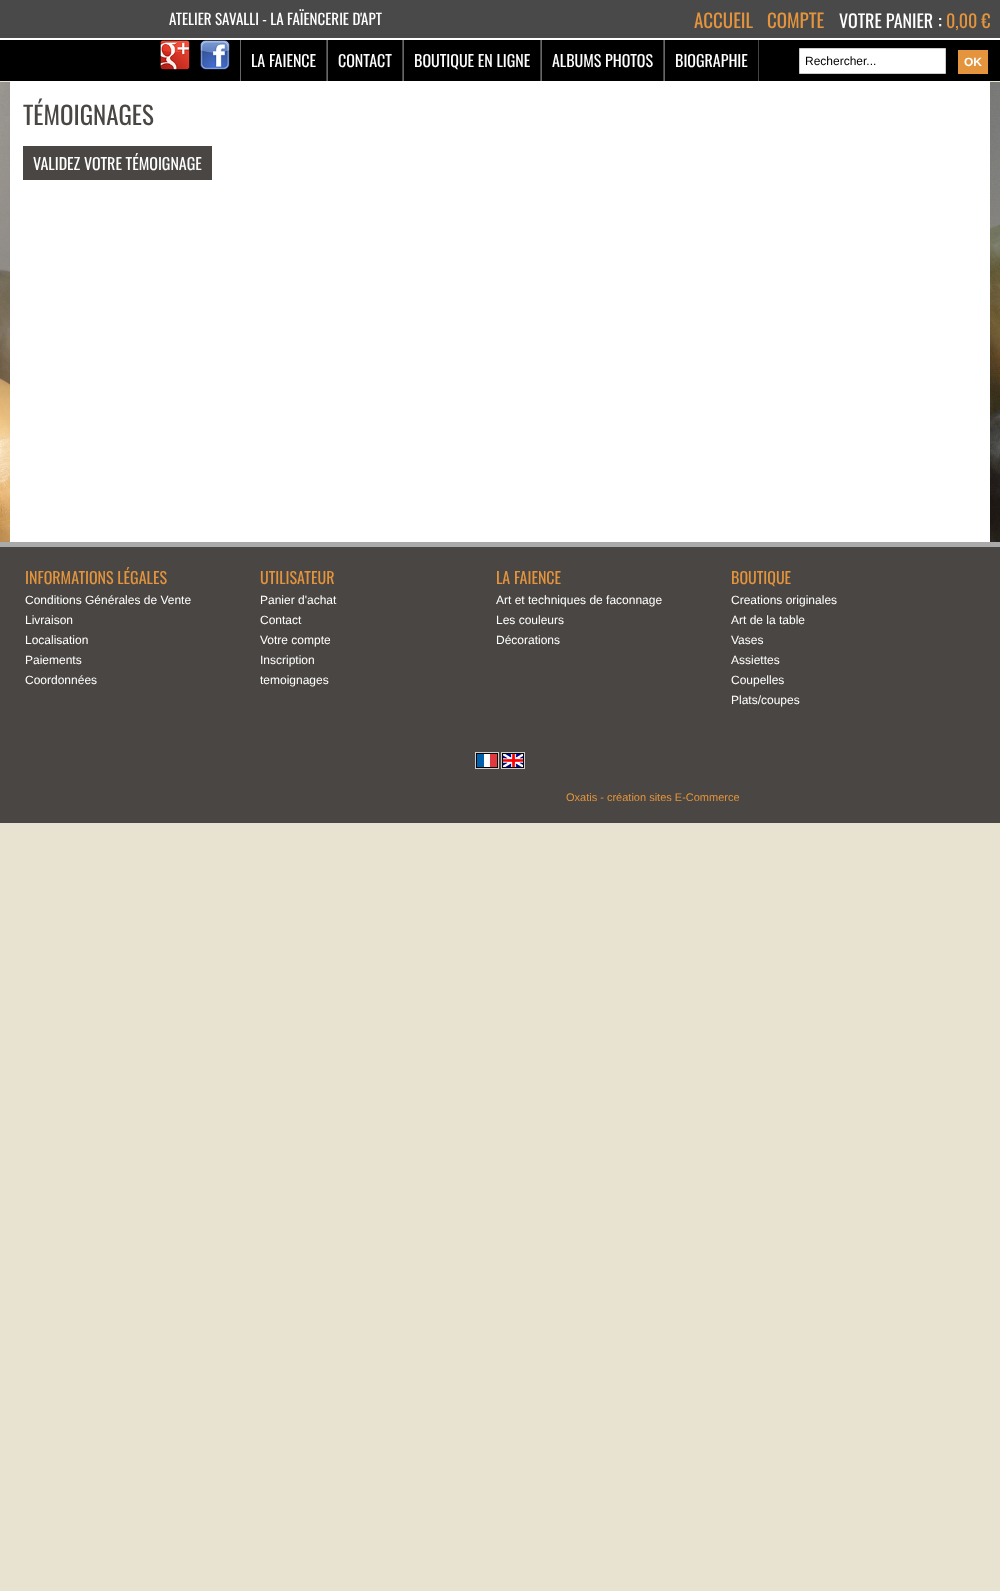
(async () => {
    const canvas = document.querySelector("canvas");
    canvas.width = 1000;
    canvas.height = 1591;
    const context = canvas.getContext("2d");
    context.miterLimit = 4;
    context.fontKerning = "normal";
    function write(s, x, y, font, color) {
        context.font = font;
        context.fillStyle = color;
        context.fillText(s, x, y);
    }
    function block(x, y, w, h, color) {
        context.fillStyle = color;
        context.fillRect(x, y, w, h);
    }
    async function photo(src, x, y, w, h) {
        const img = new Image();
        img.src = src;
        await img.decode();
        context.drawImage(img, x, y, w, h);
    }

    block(0, 0, 1000, 1591, "rgb(232, 227, 209)");
    await photo("media/1.png", 0, 82, 1000, 460);
    await photo("media/2.png", 0, 0, 1000, 81);
    write("ATELIER SAVALLI - LA FAÏENCERIE D'APT", 169, 25, "15px Oswald", "rgb(255, 255, 255)");
    write("ACCUEIL", 694, 28, "19px Oswald", "rgb(227, 148, 61)");
    write("COMPTE", 767, 28, "19px Oswald", "rgb(227, 148, 61)");
    write("VOTRE PANIER", 839, 28, "18px Oswald", "rgb(255, 255, 255)");
    write(":", 938, 28, "19px Oswald", "rgb(255, 255, 255)");
    write("0,00 €", 946, 28, "18px Oswald", "rgb(227, 148, 61)");
    context.fillStyle = "rgb(255, 255, 255)";
    context.beginPath();
    context.rect(799.5, 48.5, 146, 25);
    context.fill();
    context.strokeStyle = "rgb(204, 204, 204)";
    context.stroke();
    write("Rechercher...", 805, 65, "12px Liberation Sans", "rgb(0, 0, 0)");
    block(958, 50, 30, 24, "rgb(227, 148, 61)");
    write("OK", 964, 66, "bold 12px Liberation Sans", "rgb(255, 255, 255)");
    await photo("media/3.png", 160, 40, 30, 30);
    await photo("media/4.png", 200, 40, 30, 30);
    block(326, 40, 1, 41, "rgb(68, 68, 68)");
    block(240, 40, 1, 41, "rgb(102, 102, 102)");
    write("LA FAIENCE", 251, 67, "16px Oswald", "rgb(255, 255, 255)");
    block(402, 40, 1, 41, "rgb(68, 68, 68)");
    block(327, 40, 1, 41, "rgb(102, 102, 102)");
    write("CONTACT", 338, 67, "16px Oswald", "rgb(255, 255, 255)");
    block(540, 40, 1, 41, "rgb(68, 68, 68)");
    block(403, 40, 1, 41, "rgb(102, 102, 102)");
    write("BOUTIQUE EN LIGNE", 414, 67, "16px Oswald", "rgb(255, 255, 255)");
    block(663, 40, 1, 41, "rgb(68, 68, 68)");
    block(541, 40, 1, 41, "rgb(102, 102, 102)");
    write("ALBUMS PHOTOS", 552, 67, "16px Oswald", "rgb(255, 255, 255)");
    block(758, 40, 1, 41, "rgb(68, 68, 68)");
    block(664, 40, 1, 41, "rgb(102, 102, 102)");
    write("BIOGRAPHIE", 675, 67, "16px Oswald", "rgb(255, 255, 255)");
    block(10, 81, 980, 461, "rgb(255, 255, 255)");
    write("TÉMOIGNAGES", 23, 125, "25px Oswald", "rgb(74, 70, 67)");
    block(23, 146, 189, 34, "rgb(74, 70, 67)");
    write("VALIDEZ VOTRE TÉMOIGNAGE", 33, 170, "16px Oswald", "rgb(255, 255, 255)");
    block(0, 547, 1000, 276, "rgb(74, 70, 67)");
    block(0, 542, 1000, 5, "rgb(170, 170, 170)");
    write("INFORMATIONS LÉGALES", 25, 584, "16px Oswald", "rgb(227, 148, 61)");
    write("UTILISATEUR", 260, 584, "16px Oswald", "rgb(227, 148, 61)");
    write("LA FAIENCE", 496, 584, "16px Oswald", "rgb(227, 148, 61)");
    write("BOUTIQUE", 731, 584, "16px Oswald", "rgb(227, 148, 61)");
    write("Conditions Générales de Vente", 25, 604, "12px Liberation Sans", "rgb(255, 255, 255)");
    write("Panier d'achat", 260, 604, "12px Liberation Sans", "rgb(255, 255, 255)");
    write("Art et techniques de faconnage", 496, 604, "12px Liberation Sans", "rgb(255, 255, 255)");
    write("Creations originales", 731, 604, "12px Liberation Sans", "rgb(255, 255, 255)");
    write("Livraison", 25, 624, "12px Liberation Sans", "rgb(255, 255, 255)");
    write("Contact", 260, 624, "12px Liberation Sans", "rgb(255, 255, 255)");
    write("Les couleurs", 496, 624, "12px Liberation Sans", "rgb(255, 255, 255)");
    write("Art de la table", 731, 624, "12px Liberation Sans", "rgb(255, 255, 255)");
    write("Localisation", 25, 644, "12px Liberation Sans", "rgb(255, 255, 255)");
    write("Votre compte", 260, 644, "12px Liberation Sans", "rgb(255, 255, 255)");
    write("Décorations", 496, 644, "12px Liberation Sans", "rgb(255, 255, 255)");
    write("Vases", 731, 644, "12px Liberation Sans", "rgb(255, 255, 255)");
    write("Paiements", 25, 664, "12px Liberation Sans", "rgb(255, 255, 255)");
    write("Inscription", 260, 664, "12px Liberation Sans", "rgb(255, 255, 255)");
    write("Assiettes", 731, 664, "12px Liberation Sans", "rgb(255, 255, 255)");
    write("Coordonnées", 25, 684, "12px Liberation Sans", "rgb(255, 255, 255)");
    write("temoignages", 260, 684, "12px Liberation Sans", "rgb(255, 255, 255)");
    write("Coupelles", 731, 684, "12px Liberation Sans", "rgb(255, 255, 255)");
    write("Plats/coupes", 731, 704, "12px Liberation Sans", "rgb(255, 255, 255)");
    await photo("media/5.png", 476, 753, 22, 15);
    context.strokeRect(475.5, 752.5, 23, 16);
    await photo("media/6.png", 502, 753, 22, 15);
    context.strokeRect(501.5, 752.5, 23, 16);
    write("Oxatis - création sites E-Commerce", 566, 801, "11px Liberation Sans", "rgb(227, 148, 61)");
})();
